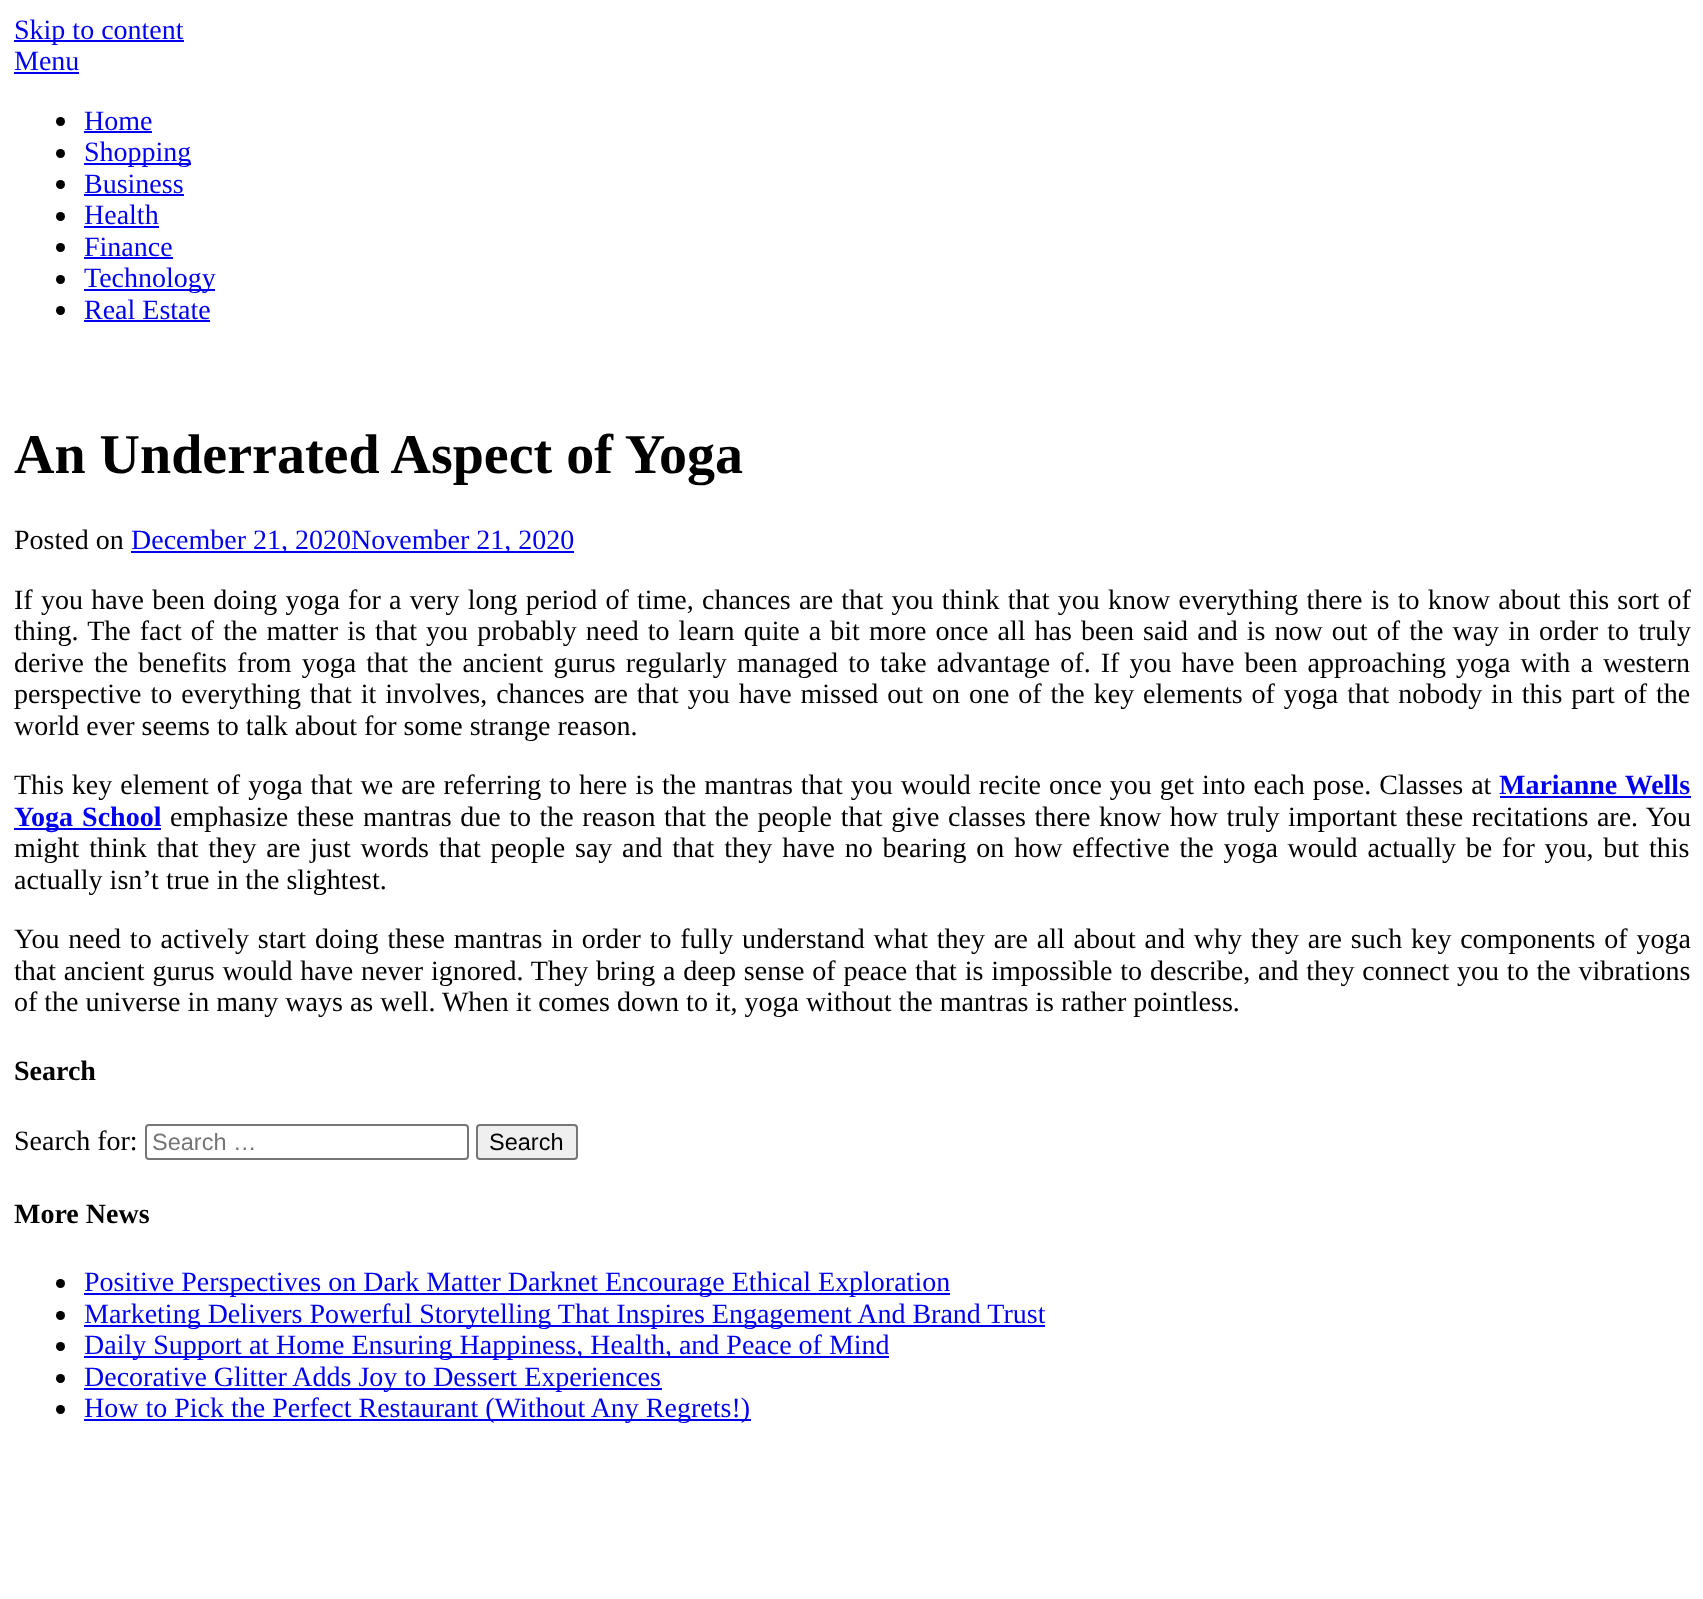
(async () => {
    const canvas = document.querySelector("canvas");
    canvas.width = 1703;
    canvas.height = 1599;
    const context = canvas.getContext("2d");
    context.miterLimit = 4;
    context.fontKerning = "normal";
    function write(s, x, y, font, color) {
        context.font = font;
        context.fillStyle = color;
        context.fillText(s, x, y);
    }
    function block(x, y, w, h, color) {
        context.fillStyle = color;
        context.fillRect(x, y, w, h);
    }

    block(0, 0, 1703, 1599, "rgb(255, 255, 255)");
    block(14, 40, 170, 2, "rgb(0, 0, 238)");
    write("Skip to content", 14, 39, "28px Liberation Serif", "rgb(0, 0, 238)");
    write("Menu", 14, 70, "28px Liberation Serif", "rgb(0, 0, 238)");
    block(14, 72, 65, 2, "rgb(0, 0, 238)");
    context.fillStyle = "rgb(0, 0, 0)";
    context.beginPath();
    context.arc(60.5, 121.5, 4.5, 0, Math.PI * 2);
    context.fill();
    write("Home", 84, 130, "28px Liberation Serif", "rgb(0, 0, 238)");
    block(84, 131, 68, 2, "rgb(0, 0, 238)");
    context.fillStyle = "rgb(0, 0, 0)";
    context.beginPath();
    context.arc(60.5, 153.5, 4.5, 0, Math.PI * 2);
    context.fill();
    block(84, 163, 107, 2, "rgb(0, 0, 238)");
    write("Shopping", 84, 161, "28px Liberation Serif", "rgb(0, 0, 238)");
    context.fillStyle = "rgb(0, 0, 0)";
    context.beginPath();
    context.arc(60.5, 184.5, 4.5, 0, Math.PI * 2);
    context.fill();
    write("Business", 84, 193, "28px Liberation Serif", "rgb(0, 0, 238)");
    block(84, 194, 100, 2, "rgb(0, 0, 238)");
    context.fillStyle = "rgb(0, 0, 0)";
    context.beginPath();
    context.arc(60.5, 216.5, 4.5, 0, Math.PI * 2);
    context.fill();
    write("Health", 84, 224, "28px Liberation Serif", "rgb(0, 0, 238)");
    block(84, 226, 75, 2, "rgb(0, 0, 238)");
    context.fillStyle = "rgb(0, 0, 0)";
    context.beginPath();
    context.arc(60.5, 247.5, 4.5, 0, Math.PI * 2);
    context.fill();
    write("Finance", 84, 256, "28px Liberation Serif", "rgb(0, 0, 238)");
    block(84, 257, 89, 2, "rgb(0, 0, 238)");
    context.fillStyle = "rgb(0, 0, 0)";
    context.beginPath();
    context.arc(60.5, 279.5, 4.5, 0, Math.PI * 2);
    context.fill();
    block(84, 289, 131, 2, "rgb(0, 0, 238)");
    write("Technology", 84, 287, "28px Liberation Serif", "rgb(0, 0, 238)");
    context.fillStyle = "rgb(0, 0, 0)";
    context.beginPath();
    context.arc(60.5, 310.5, 4.5, 0, Math.PI * 2);
    context.fill();
    write("Real Estate", 84, 319, "28px Liberation Serif", "rgb(0, 0, 238)");
    block(84, 320, 126, 2, "rgb(0, 0, 238)");
    write("An Underrated Aspect of Yoga", 14, 473, "bold 56px Liberation Serif", "rgb(0, 0, 0)");
    write("Posted on", 14, 549, "28px Liberation Serif", "rgb(0, 0, 0)");
    block(131, 551, 443, 2, "rgb(0, 0, 238)");
    write("December 21, 2020November 21, 2020", 131, 549, "28px Liberation Serif", "rgb(0, 0, 238)");
    context.wordSpacing = "1.25px";
    write("If you have been doing yoga for a very long period of time, chances are that you think that you know everything there is to know about this sort of", 14, 609, "28px Liberation Serif", "rgb(0, 0, 0)");
    context.wordSpacing = "2.1px";
    write("thing. The fact of the matter is that you probably need to learn quite a bit more once all has been said and is now out of the way in order to truly", 14, 640, "28px Liberation Serif", "rgb(0, 0, 0)");
    context.wordSpacing = "3.1px";
    write("derive the benefits from yoga that the ancient gurus regularly managed to take advantage of. If you have been approaching yoga with a western", 14, 672, "28px Liberation Serif", "rgb(0, 0, 0)");
    context.wordSpacing = "1.95px";
    write("perspective to everything that it involves, chances are that you have missed out on one of the key elements of yoga that nobody in this part of the", 14, 703, "28px Liberation Serif", "rgb(0, 0, 0)");
    context.wordSpacing = "0px";
    write("world ever seems to talk about for some strange reason.", 14, 735, "28px Liberation Serif", "rgb(0, 0, 0)");
    context.wordSpacing = "1px";
    write("This key element of yoga that we are referring to here is the mantras that you would recite once you get into each pose. Classes at", 14, 794, "28px Liberation Serif", "rgb(0, 0, 0)");
    write("Marianne Wells", 1499, 794, "bold 28px Liberation Serif", "rgb(0, 0, 238)");
    block(1500, 796, 191, 2, "rgb(0, 0, 238)");
    block(14, 828, 147, 2, "rgb(0, 0, 238)");
    context.wordSpacing = "2px";
    write("Yoga School", 14, 826, "bold 28px Liberation Serif", "rgb(0, 0, 238)");
    context.wordSpacing = "1.6px";
    write("emphasize these mantras due to the reason that the people that give classes there know how truly important these recitations are. You", 170, 826, "28px Liberation Serif", "rgb(0, 0, 0)");
    context.wordSpacing = "2.8px";
    write("might think that they are just words that people say and that they have no bearing on how effective the yoga would actually be for you, but this", 14, 857, "28px Liberation Serif", "rgb(0, 0, 0)");
    context.wordSpacing = "0px";
    write("actually isn’t true in the slightest.", 14, 889, "28px Liberation Serif", "rgb(0, 0, 0)");
    context.wordSpacing = "1.8px";
    write("You need to actively start doing these mantras in order to fully understand what they are all about and why they are such key components of yoga", 14, 948, "28px Liberation Serif", "rgb(0, 0, 0)");
    context.wordSpacing = "0.8px";
    write("that ancient gurus would have never ignored. They bring a deep sense of peace that is impossible to describe, and they connect you to the vibrations", 14, 980, "28px Liberation Serif", "rgb(0, 0, 0)");
    context.wordSpacing = "0px";
    write("of the universe in many ways as well. When it comes down to it, yoga without the mantras is rather pointless.", 14, 1011, "28px Liberation Serif", "rgb(0, 0, 0)");
    write("Search", 14, 1080, "bold 28px Liberation Serif", "rgb(0, 0, 0)");
    write("Search for:", 14, 1150, "28px Liberation Serif", "rgb(0, 0, 0)");
    context.beginPath();
    context.roundRect(146, 1125, 322, 34, 3);
    context.strokeStyle = "rgb(118, 118, 118)";
    context.lineWidth = 2;
    context.stroke();
    write("Search …", 152, 1150, "23.5px Liberation Sans", "rgb(117, 117, 117)");
    context.fillStyle = "rgb(239, 239, 239)";
    context.beginPath();
    context.roundRect(477, 1125, 100, 34, 3);
    context.fill();
    context.stroke();
    write("Search", 489, 1150, "23.5px Liberation Sans", "rgb(0, 0, 0)");
    write("More News", 14, 1223, "bold 28px Liberation Serif", "rgb(0, 0, 0)");
    context.beginPath();
    context.arc(60.5, 1283.5, 4.5, 0, Math.PI * 2);
    context.fill();
    block(84, 1293, 866, 2, "rgb(0, 0, 238)");
    write("Positive Perspectives on Dark Matter Darknet Encourage Ethical Exploration", 84, 1291, "28px Liberation Serif", "rgb(0, 0, 238)");
    context.fillStyle = "rgb(0, 0, 0)";
    context.beginPath();
    context.arc(60.5, 1315.5, 4.5, 0, Math.PI * 2);
    context.fill();
    block(84, 1325, 961, 2, "rgb(0, 0, 238)");
    write("Marketing Delivers Powerful Storytelling That Inspires Engagement And Brand Trust", 84, 1323, "28px Liberation Serif", "rgb(0, 0, 238)");
    context.fillStyle = "rgb(0, 0, 0)";
    context.beginPath();
    context.arc(60.5, 1346.5, 4.5, 0, Math.PI * 2);
    context.fill();
    block(84, 1356, 805, 2, "rgb(0, 0, 238)");
    write("Daily Support at Home Ensuring Happiness, Health, and Peace of Mind", 84, 1354, "28px Liberation Serif", "rgb(0, 0, 238)");
    context.fillStyle = "rgb(0, 0, 0)";
    context.beginPath();
    context.arc(60.5, 1378.5, 4.5, 0, Math.PI * 2);
    context.fill();
    block(84, 1388, 578, 2, "rgb(0, 0, 238)");
    write("Decorative Glitter Adds Joy to Dessert Experiences", 84, 1386, "28px Liberation Serif", "rgb(0, 0, 238)");
    context.fillStyle = "rgb(0, 0, 0)";
    context.beginPath();
    context.arc(60.5, 1409.5, 4.5, 0, Math.PI * 2);
    context.fill();
    block(84, 1419, 667, 2, "rgb(0, 0, 238)");
    write("How to Pick the Perfect Restaurant (Without Any Regrets!)", 84, 1417, "28px Liberation Serif", "rgb(0, 0, 238)");
})();
